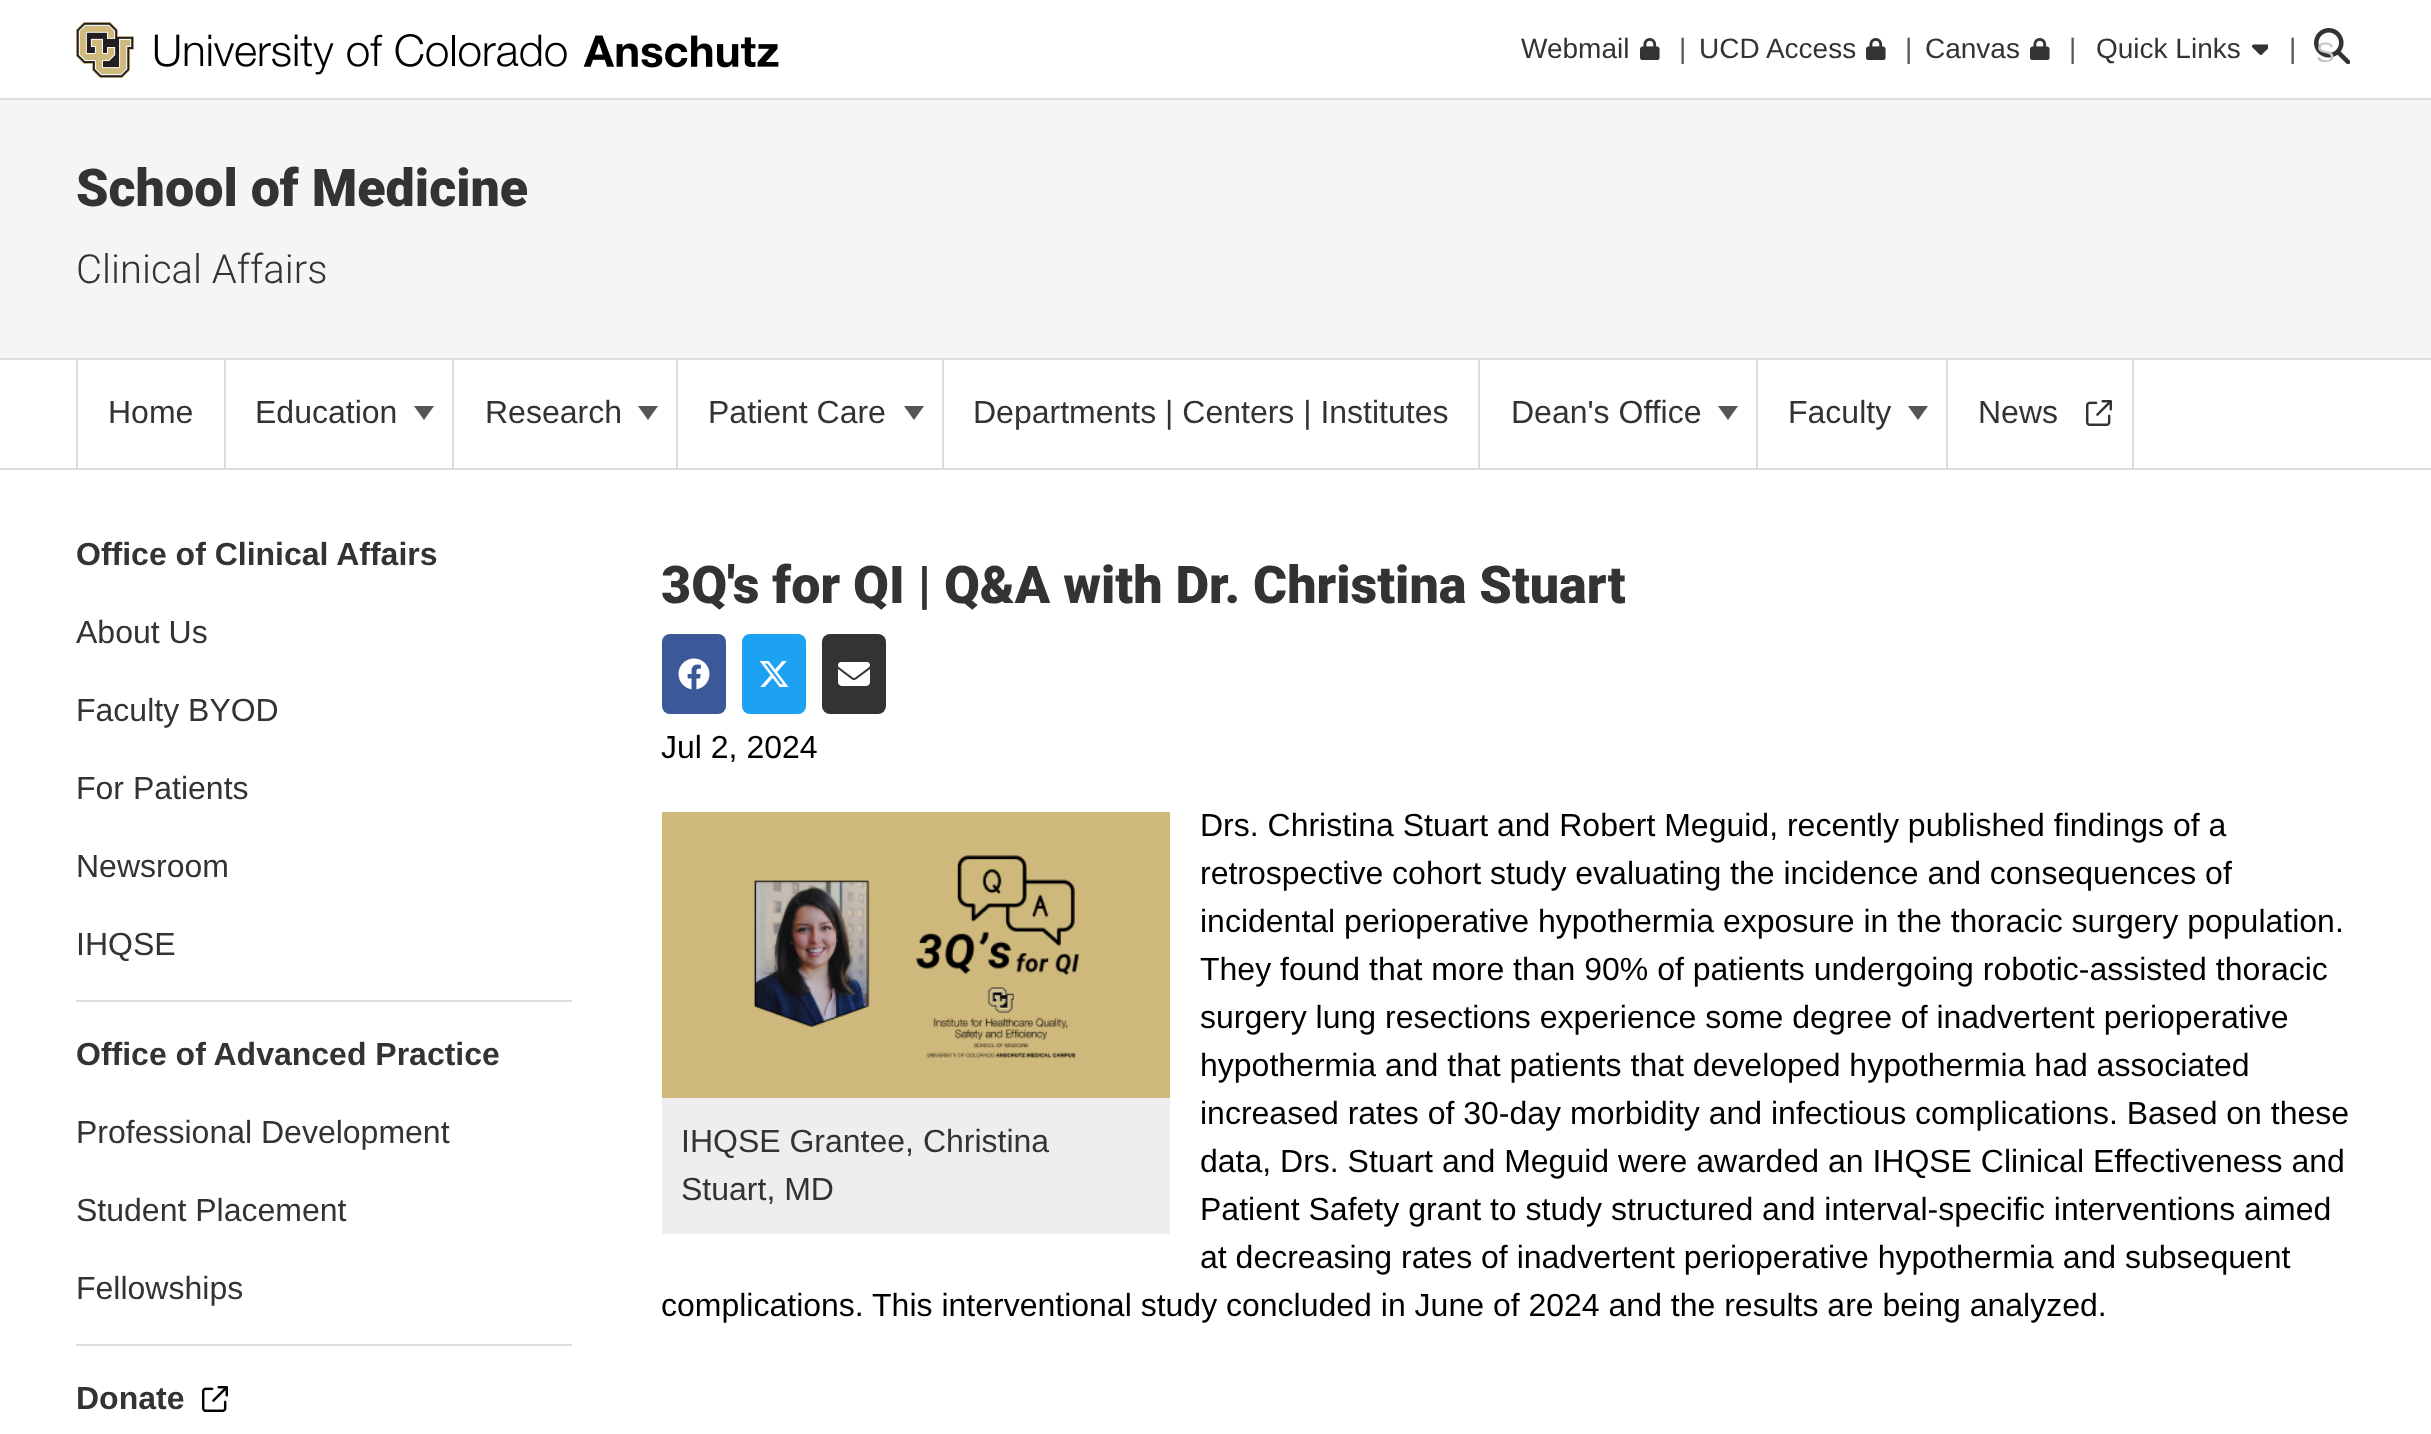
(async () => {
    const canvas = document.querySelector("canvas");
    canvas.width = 2431;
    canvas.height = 1434;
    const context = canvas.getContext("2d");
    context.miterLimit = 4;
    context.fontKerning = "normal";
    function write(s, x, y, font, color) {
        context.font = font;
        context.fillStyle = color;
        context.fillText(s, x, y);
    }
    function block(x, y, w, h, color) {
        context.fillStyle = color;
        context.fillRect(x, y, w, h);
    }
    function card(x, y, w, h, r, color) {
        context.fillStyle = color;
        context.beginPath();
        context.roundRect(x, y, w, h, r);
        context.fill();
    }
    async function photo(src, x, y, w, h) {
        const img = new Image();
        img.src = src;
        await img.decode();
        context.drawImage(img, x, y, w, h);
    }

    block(0, 0, 2431, 1434, "rgb(255, 255, 255)");
    block(0, 98, 2431, 2, "rgb(221, 221, 221)");
    await photo("media/1.png", 76, 22, 703, 56);
    write("Webmail", 1521, 58, "28px Liberation Sans", "rgb(51, 51, 51)");
    await photo("media/2.png", 1640, 38, 20, 22);
    write("|", 1679, 58, "28px Liberation Sans", "rgb(85, 85, 85)");
    write("UCD Access", 1699, 58, "28px Liberation Sans", "rgb(51, 51, 51)");
    await photo("media/2.png", 1866, 38, 20, 22);
    write("|", 1905, 58, "28px Liberation Sans", "rgb(85, 85, 85)");
    write("Canvas", 1925, 58, "28px Liberation Sans", "rgb(51, 51, 51)");
    await photo("media/2.png", 2030, 38, 20, 22);
    write("|", 2069, 58, "28px Liberation Sans", "rgb(85, 85, 85)");
    write("Quick Links", 2096, 58, "28px Liberation Sans", "rgb(51, 51, 51)");
    await photo("media/3.png", 2252, 44, 16, 11);
    write("|", 2289, 58, "28px Liberation Sans", "rgb(85, 85, 85)");
    await photo("media/4.png", 2314, 28, 36, 36);
    write("S", 2316, 62, "28px Liberation Sans", "rgb(198, 198, 198)");
    block(0, 100, 2431, 258, "rgb(245, 245, 245)");
    block(0, 358, 2431, 2, "rgb(221, 221, 221)");
    write("School of Medicine", 76, 206, "900 52px Roboto", "rgb(51, 51, 51)");
    write("Clinical Affairs", 76, 283, "300 40px Roboto", "rgb(51, 51, 51)");
    block(0, 468, 2431, 2, "rgb(221, 221, 221)");
    block(224, 360, 2, 108, "rgb(221, 221, 221)");
    block(76, 360, 2, 108, "rgb(221, 221, 221)");
    write("Home", 108, 423, "32px Liberation Sans", "rgb(51, 51, 51)");
    block(452, 360, 2, 108, "rgb(221, 221, 221)");
    write("Education", 255, 423, "32px Liberation Sans", "rgb(51, 51, 51)");
    context.fillStyle = "rgb(85, 85, 85)";
    context.beginPath();
    context.moveTo(414, 406);
    context.lineTo(434, 406);
    context.lineTo(424, 420);
    context.closePath();
    context.fill();
    block(676, 360, 2, 108, "rgb(221, 221, 221)");
    write("Research", 485, 423, "32px Liberation Sans", "rgb(51, 51, 51)");
    context.fillStyle = "rgb(85, 85, 85)";
    context.beginPath();
    context.moveTo(638, 406);
    context.lineTo(658, 406);
    context.lineTo(648, 420);
    context.closePath();
    context.fill();
    block(942, 360, 2, 108, "rgb(221, 221, 221)");
    write("Patient Care", 708, 423, "32px Liberation Sans", "rgb(51, 51, 51)");
    context.fillStyle = "rgb(85, 85, 85)";
    context.beginPath();
    context.moveTo(904, 406);
    context.lineTo(924, 406);
    context.lineTo(914, 420);
    context.closePath();
    context.fill();
    block(1478, 360, 2, 108, "rgb(221, 221, 221)");
    write("Departments | Centers | Institutes", 973, 423, "32px Liberation Sans", "rgb(51, 51, 51)");
    block(1756, 360, 2, 108, "rgb(221, 221, 221)");
    write("Dean's Office", 1511, 423, "32px Liberation Sans", "rgb(51, 51, 51)");
    context.fillStyle = "rgb(85, 85, 85)";
    context.beginPath();
    context.moveTo(1718, 406);
    context.lineTo(1738, 406);
    context.lineTo(1728, 420);
    context.closePath();
    context.fill();
    block(1946, 360, 2, 108, "rgb(221, 221, 221)");
    write("Faculty", 1788, 423, "32px Liberation Sans", "rgb(51, 51, 51)");
    context.fillStyle = "rgb(85, 85, 85)";
    context.beginPath();
    context.moveTo(1908, 406);
    context.lineTo(1928, 406);
    context.lineTo(1918, 420);
    context.closePath();
    context.fill();
    block(2132, 360, 2, 108, "rgb(221, 221, 221)");
    write("News", 1978, 423, "32px Liberation Sans", "rgb(51, 51, 51)");
    await photo("media/5.png", 2086, 400, 26, 26);
    block(76, 1000, 496, 2, "rgb(221, 221, 221)");
    write("Office of Clinical Affairs", 76, 565, "bold 32px Liberation Sans", "rgb(51, 51, 51)");
    write("About Us", 76, 643, "32px Liberation Sans", "rgb(51, 51, 51)");
    write("Faculty BYOD", 76, 721, "32px Liberation Sans", "rgb(51, 51, 51)");
    write("For Patients", 76, 799, "32px Liberation Sans", "rgb(51, 51, 51)");
    write("Newsroom", 76, 877, "32px Liberation Sans", "rgb(51, 51, 51)");
    write("IHQSE", 76, 955, "32px Liberation Sans", "rgb(51, 51, 51)");
    block(76, 1344, 496, 2, "rgb(221, 221, 221)");
    write("Office of Advanced Practice", 76, 1065, "bold 32px Liberation Sans", "rgb(51, 51, 51)");
    write("Professional Development", 76, 1143, "32px Liberation Sans", "rgb(51, 51, 51)");
    write("Student Placement", 76, 1221, "32px Liberation Sans", "rgb(51, 51, 51)");
    write("Fellowships", 76, 1299, "32px Liberation Sans", "rgb(51, 51, 51)");
    write("Donate", 76, 1409, "bold 32px Liberation Sans", "rgb(51, 51, 51)");
    await photo("media/6.png", 202, 1386, 26, 26);
    write("3Q's for QI | Q&A with Dr. Christina Stuart", 661, 603, "900 52px Roboto", "rgb(51, 51, 51)");
    card(662, 634, 64, 80, 8, "rgb(59, 89, 152)");
    await photo("media/7.png", 678, 658, 32, 32);
    card(742, 634, 64, 80, 8, "rgb(29, 161, 242)");
    await photo("media/8.png", 759, 661, 30, 26);
    card(822, 634, 64, 80, 8, "rgb(51, 51, 51)");
    await photo("media/9.png", 838, 662, 32, 24);
    write("Jul 2, 2024", 661, 758, "32px Liberation Sans", "rgb(0, 0, 0)");
    write("Drs. Christina Stuart and Robert Meguid, recently published findings of a", 1200, 836, "32px Liberation Sans", "rgb(0, 0, 0)");
    write("retrospective cohort study evaluating the incidence and consequences of", 1200, 884, "32px Liberation Sans", "rgb(0, 0, 0)");
    write("incidental perioperative hypothermia exposure in the thoracic surgery population.", 1200, 932, "32px Liberation Sans", "rgb(0, 0, 0)");
    write("They found that more than 90% of patients undergoing robotic-assisted thoracic", 1200, 980, "32px Liberation Sans", "rgb(0, 0, 0)");
    write("surgery lung resections experience some degree of inadvertent perioperative", 1200, 1028, "32px Liberation Sans", "rgb(0, 0, 0)");
    write("hypothermia and that patients that developed hypothermia had associated", 1200, 1076, "32px Liberation Sans", "rgb(0, 0, 0)");
    write("increased rates of 30-day morbidity and infectious complications. Based on these", 1200, 1124, "32px Liberation Sans", "rgb(0, 0, 0)");
    write("data, Drs. Stuart and Meguid were awarded an IHQSE Clinical Effectiveness and", 1200, 1172, "32px Liberation Sans", "rgb(0, 0, 0)");
    write("Patient Safety grant to study structured and interval-specific interventions aimed", 1200, 1220, "32px Liberation Sans", "rgb(0, 0, 0)");
    write("at decreasing rates of inadvertent perioperative hypothermia and subsequent", 1200, 1268, "32px Liberation Sans", "rgb(0, 0, 0)");
    write("complications. This interventional study concluded in June of 2024 and the results are being analyzed.", 661, 1316, "32px Liberation Sans", "rgb(0, 0, 0)");
    await photo("media/10.png", 662, 812, 508, 286);
    block(662, 1098, 508, 136, "rgb(238, 238, 238)");
    write("IHQSE Grantee, Christina", 681, 1152, "32px Liberation Sans", "rgb(51, 51, 51)");
    write("Stuart, MD", 681, 1200, "32px Liberation Sans", "rgb(51, 51, 51)");
})();
